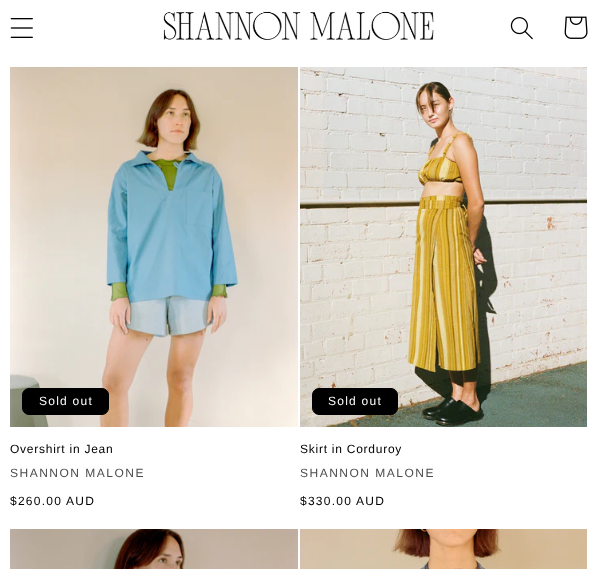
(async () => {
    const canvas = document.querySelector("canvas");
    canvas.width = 597;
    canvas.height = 569;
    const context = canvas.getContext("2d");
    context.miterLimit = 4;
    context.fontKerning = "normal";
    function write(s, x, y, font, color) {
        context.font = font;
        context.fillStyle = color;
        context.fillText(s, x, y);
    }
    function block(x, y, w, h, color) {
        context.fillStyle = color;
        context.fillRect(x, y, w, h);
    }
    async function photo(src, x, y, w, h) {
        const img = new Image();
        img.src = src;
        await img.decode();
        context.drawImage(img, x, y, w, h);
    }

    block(0, 0, 597, 569, "rgb(255, 255, 255)");
    await photo("media/1.png", 10, 18, 23, 20);
    await photo("media/2.png", 163, 11, 271, 29);
    await photo("media/3.png", 510, 17, 23, 23);
    await photo("media/4.png", 564, 16, 24, 23);
    await photo("media/5.png", 10, 67, 288, 360);
    context.fillStyle = "rgb(0, 0, 0)";
    context.beginPath();
    context.roundRect(22.5, 388.5, 86, 26, 6.5);
    context.fill();
    context.strokeStyle = "rgb(0, 0, 0)";
    context.stroke();
    context.letterSpacing = "1.25px";
    write("Sold out", 39, 405, "12px Liberation Sans", "rgb(255, 255, 255)");
    context.letterSpacing = "0.75px";
    write("Overshirt in Jean", 10, 453, "12px Liberation Sans", "rgb(0, 0, 0)");
    context.letterSpacing = "1.5px";
    write("SHANNON MALONE", 10, 477, "12px Liberation Sans", "rgb(77, 77, 77)");
    context.letterSpacing = "1.25px";
    write("$260.00 AUD", 10, 505, "12px Liberation Sans", "rgb(0, 0, 0)");
    await photo("media/6.png", 300, 67, 287, 360);
    context.beginPath();
    context.roundRect(312.5, 388.5, 85, 26, 6.5);
    context.fill();
    context.stroke();
    write("Sold out", 328, 405, "12px Liberation Sans", "rgb(255, 255, 255)");
    context.letterSpacing = "0.75px";
    write("Skirt in Corduroy", 300, 453, "12px Liberation Sans", "rgb(0, 0, 0)");
    context.letterSpacing = "1.5px";
    write("SHANNON MALONE", 300, 477, "12px Liberation Sans", "rgb(77, 77, 77)");
    context.letterSpacing = "1.25px";
    write("$330.00 AUD", 300, 505, "12px Liberation Sans", "rgb(0, 0, 0)");
    await photo("media/7.png", 10, 529, 288, 40);
    await photo("media/8.png", 300, 529, 287, 40);
})();
